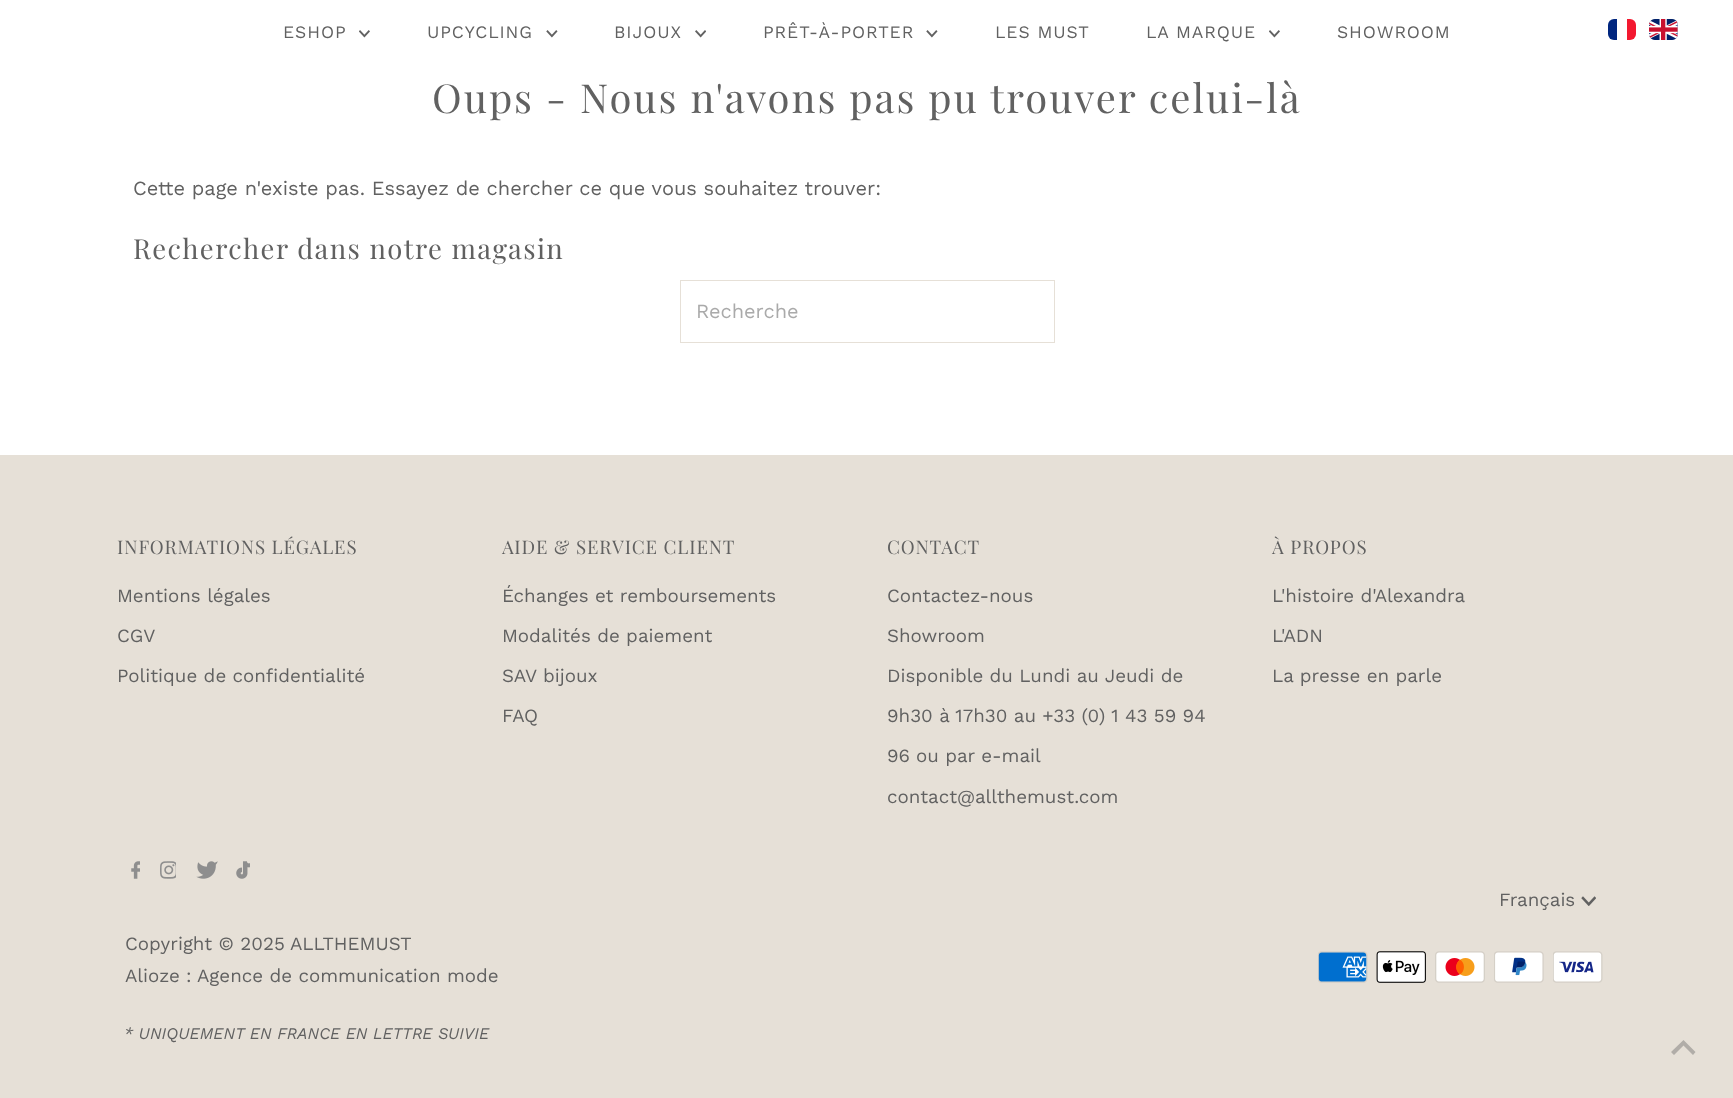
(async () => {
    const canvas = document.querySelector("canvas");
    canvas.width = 1733;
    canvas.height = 1098;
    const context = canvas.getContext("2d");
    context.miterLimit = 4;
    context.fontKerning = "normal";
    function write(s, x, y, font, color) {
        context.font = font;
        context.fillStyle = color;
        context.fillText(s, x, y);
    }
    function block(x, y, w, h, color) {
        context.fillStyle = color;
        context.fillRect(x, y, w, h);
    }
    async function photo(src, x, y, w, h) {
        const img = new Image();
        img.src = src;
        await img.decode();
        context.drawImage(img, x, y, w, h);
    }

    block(0, 0, 1733, 1098, "rgb(255, 255, 255)");
    context.letterSpacing = "0.9px";
    write("ESHOP", 283, 38, "17.5px Work Sans", "rgb(97, 97, 97)");
    await photo("media/1.png", 359, 30, 11, 8);
    write("UPCYCLING", 427, 38, "17.5px Work Sans", "rgb(97, 97, 97)");
    await photo("media/2.png", 546, 30, 12, 8);
    write("BIJOUX", 614, 38, "17.5px Work Sans", "rgb(97, 97, 97)");
    await photo("media/3.png", 695, 30, 11, 8);
    write("PRÊT-À-PORTER", 763, 38, "17.5px Work Sans", "rgb(97, 97, 97)");
    await photo("media/2.png", 926, 30, 12, 8);
    write("LES MUST", 995, 38, "17.5px Work Sans", "rgb(97, 97, 97)");
    write("LA MARQUE", 1146, 38, "17.5px Work Sans", "rgb(97, 97, 97)");
    await photo("media/1.png", 1269, 30, 11, 8);
    write("SHOWROOM", 1337, 38, "17.5px Work Sans", "rgb(97, 97, 97)");
    context.letterSpacing = "2px";
    write("Oups - Nous n'avons pas pu trouver celui-là", 432, 113, "40px Playfair Display", "rgb(97, 97, 97)");
    context.letterSpacing = "0px";
    write("Cette page n'existe pas. Essayez de chercher ce que vous souhaitez trouver:", 133, 195, "20px Work Sans", "rgb(97, 97, 97)");
    context.letterSpacing = "1.4px";
    write("Rechercher dans notre magasin", 133, 259, "27.5px Playfair Display", "rgb(97, 97, 97)");
    context.strokeStyle = "rgb(230, 224, 215)";
    context.strokeRect(680.5, 280.5, 374, 62);
    context.letterSpacing = "0px";
    write("Recherche", 696, 318, "20px Work Sans", "rgb(170, 170, 170)");
    block(0, 455, 1733, 643, "rgb(230, 224, 215)");
    context.letterSpacing = "0.9px";
    write("INFORMATIONS LÉGALES", 117, 554, "18.75px Playfair Display", "rgb(97, 97, 97)");
    context.letterSpacing = "0px";
    write("Mentions légales", 117, 602, "18.75px Work Sans", "rgb(97, 97, 97)");
    write("CGV", 117, 642, "18.75px Work Sans", "rgb(97, 97, 97)");
    write("Politique de confidentialité", 117, 682, "18.75px Work Sans", "rgb(97, 97, 97)");
    context.letterSpacing = "0.9px";
    write("AIDE & SERVICE CLIENT", 502, 554, "18.75px Playfair Display", "rgb(97, 97, 97)");
    context.letterSpacing = "0px";
    write("Échanges et remboursements", 502, 602, "18.75px Work Sans", "rgb(97, 97, 97)");
    write("Modalités de paiement", 502, 642, "18.75px Work Sans", "rgb(97, 97, 97)");
    write("SAV bijoux", 502, 682, "18.75px Work Sans", "rgb(97, 97, 97)");
    write("FAQ", 502, 722, "18.75px Work Sans", "rgb(97, 97, 97)");
    context.letterSpacing = "0.9px";
    write("CONTACT", 887, 554, "18.75px Playfair Display", "rgb(97, 97, 97)");
    context.letterSpacing = "0px";
    write("Contactez-nous", 887, 602, "18.75px Work Sans", "rgb(97, 97, 97)");
    write("Showroom", 887, 642, "18.75px Work Sans", "rgb(97, 97, 97)");
    write("Disponible du Lundi au Jeudi de", 887, 682, "18.75px Work Sans", "rgb(97, 97, 97)");
    write("9h30 à 17h30 au +33 (0) 1 43 59 94", 887, 722, "18.75px Work Sans", "rgb(97, 97, 97)");
    write("96", 887, 762, "18.75px Work Sans", "rgb(97, 97, 97)");
    write("ou par e-mail", 916, 762, "18.75px Work Sans", "rgb(97, 97, 97)");
    write("contact@allthemust.com", 887, 803, "18.75px Work Sans", "rgb(97, 97, 97)");
    context.letterSpacing = "0.9px";
    write("À PROPOS", 1272, 554, "18.75px Playfair Display", "rgb(97, 97, 97)");
    context.letterSpacing = "0px";
    write("L'histoire d'Alexandra", 1272, 602, "18.75px Work Sans", "rgb(97, 97, 97)");
    write("L'ADN", 1272, 642, "18.75px Work Sans", "rgb(97, 97, 97)");
    write("La presse en parle", 1272, 682, "18.75px Work Sans", "rgb(97, 97, 97)");
    write("Français", 1499, 906, "18.75px Work Sans", "rgb(97, 97, 97)");
    await photo("media/4.png", 1581, 896, 15, 10);
    await photo("media/5.png", 1318, 951, 50, 32);
    await photo("media/6.png", 1376, 951, 50, 32);
    await photo("media/7.png", 1435, 951, 50, 32);
    await photo("media/8.png", 1494, 951, 50, 32);
    await photo("media/9.png", 1553, 951, 50, 32);
    await photo("media/10.png", 131, 861, 9, 18);
    await photo("media/11.png", 160, 861, 16, 18);
    await photo("media/12.png", 196, 861, 22, 18);
    await photo("media/13.png", 236, 861, 14, 18);
    write("Copyright © 2025", 125, 950, "18.75px Work Sans", "rgb(97, 97, 97)");
    write("ALLTHEMUST", 290, 950, "18.75px Work Sans", "rgb(97, 97, 97)");
    write("Alioze", 125, 982, "18.75px Work Sans", "rgb(97, 97, 97)");
    write(":", 186, 982, "18.75px Work Sans", "rgb(97, 97, 97)");
    write("Agence de communication mode", 197, 982, "18.75px Work Sans", "rgb(97, 97, 97)");
    write("* UNIQUEMENT EN FRANCE EN LETTRE SUIVIE", 124, 1039, "italic 16.25px Work Sans", "rgb(97, 97, 97)");
    context.fillStyle = "rgb(177, 173, 168)";
    context.beginPath();
    context.moveTo(1683.5, 1040);
    context.lineTo(1671, 1052);
    context.lineTo(1674, 1055);
    context.lineTo(1683.5, 1045.5);
    context.lineTo(1693, 1055);
    context.lineTo(1695.5, 1052);
    context.closePath();
    context.fill();
    context.fillStyle = "rgb(0, 38, 127)";
    context.beginPath();
    context.roundRect(1608, 19, 9, 21, [6, 0, 0, 6]);
    context.fill();
    context.fillStyle = "rgb(243, 24, 48)";
    context.beginPath();
    context.roundRect(1627, 19, 9, 21, [0, 6, 6, 0]);
    context.fill();
    await photo("media/14.png", 1649, 19, 29, 21);
})();
